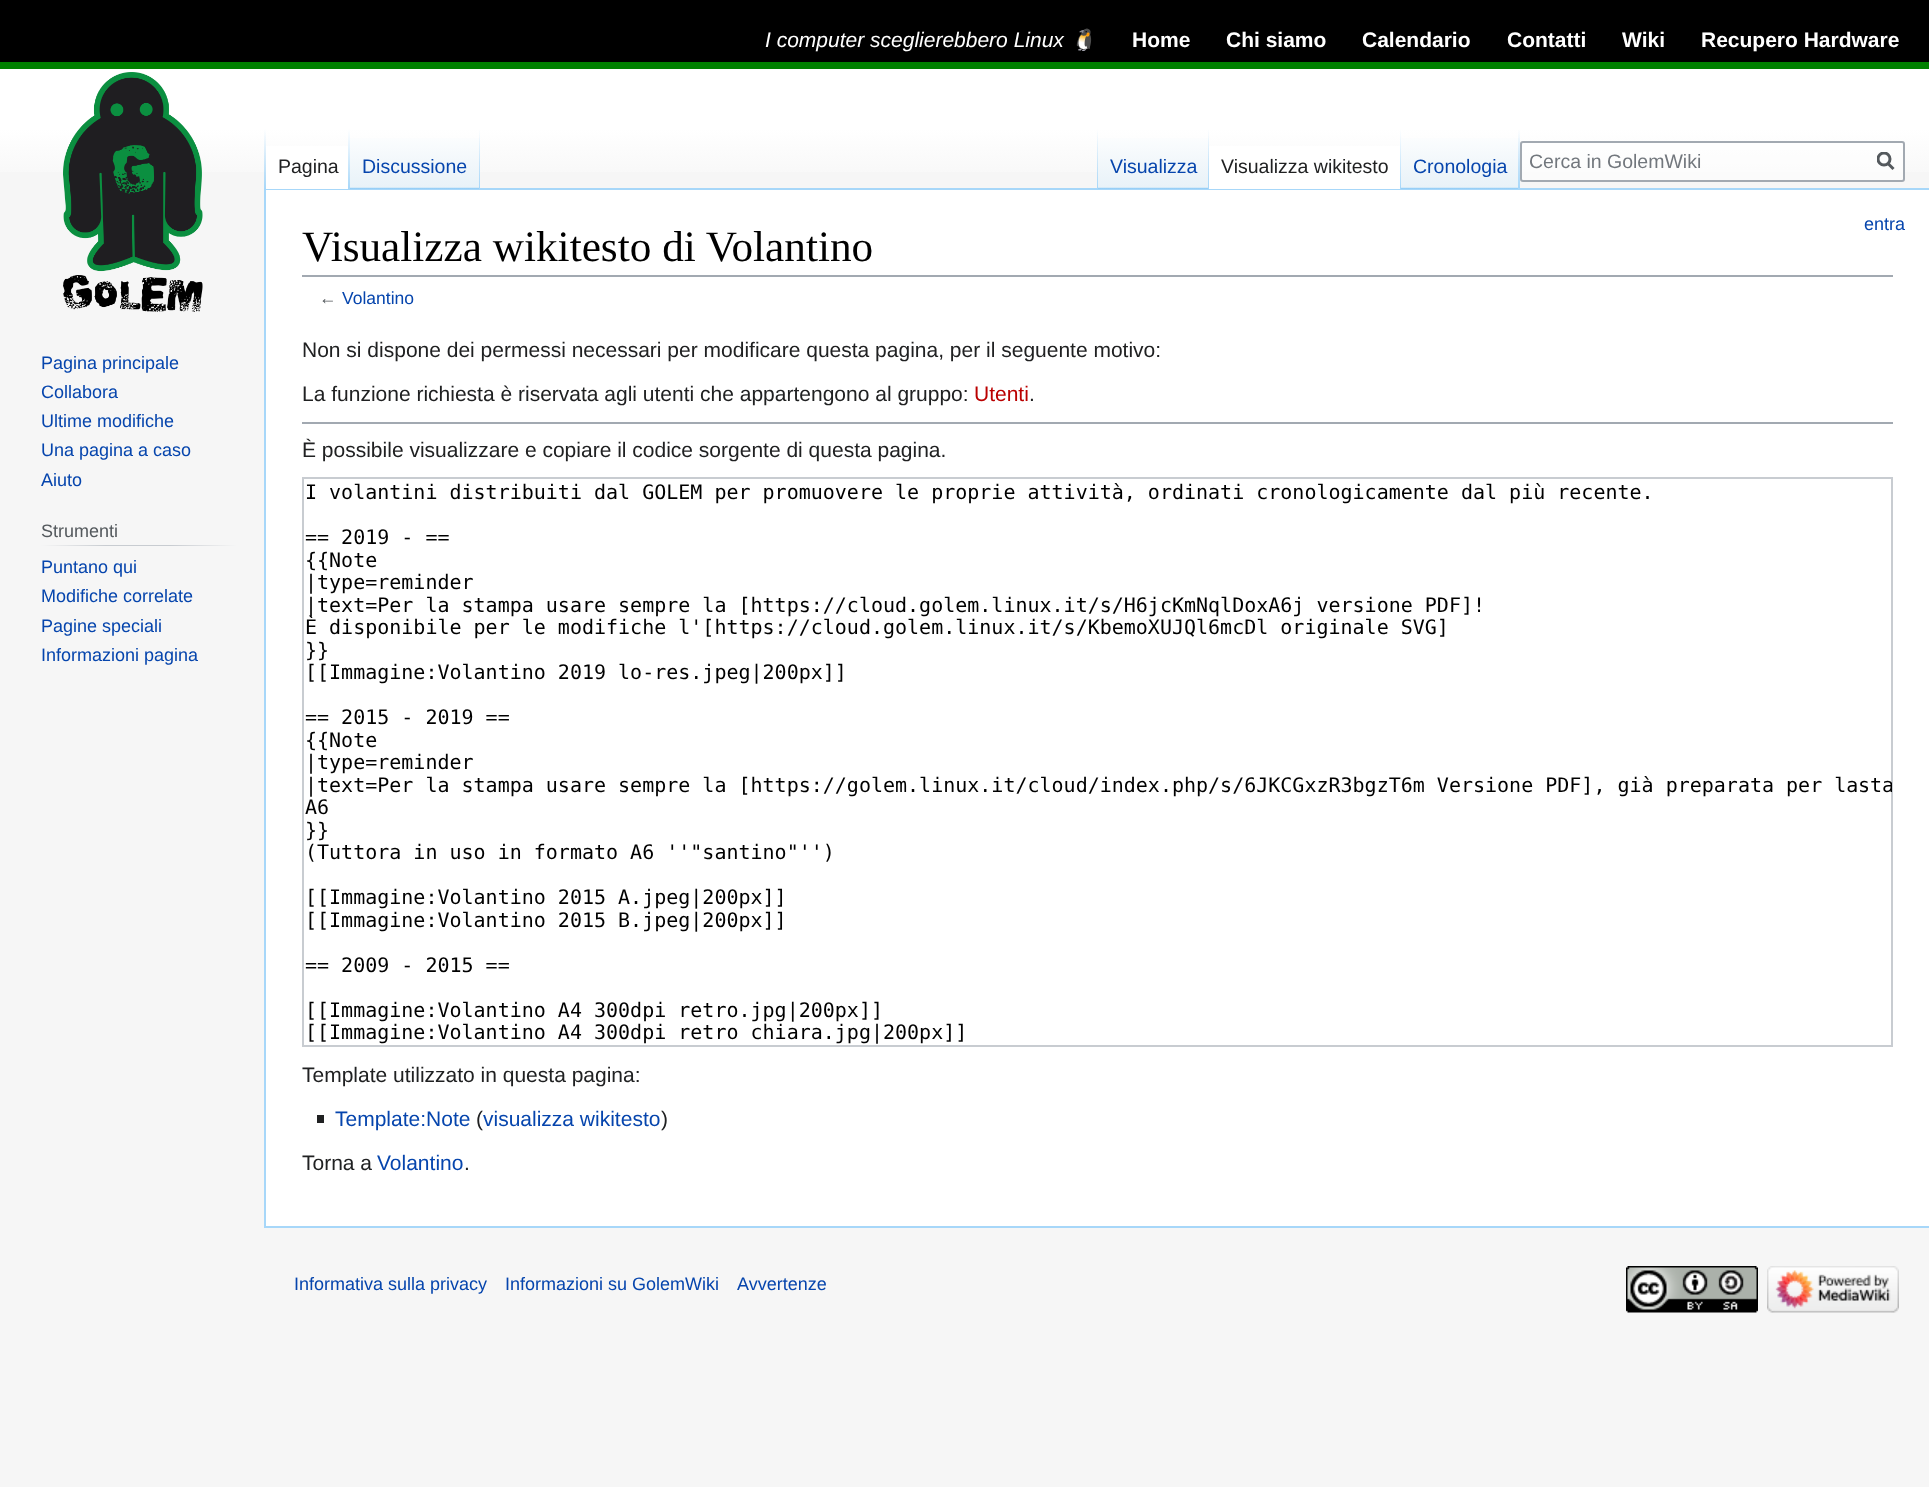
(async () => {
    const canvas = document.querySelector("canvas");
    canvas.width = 1929;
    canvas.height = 1487;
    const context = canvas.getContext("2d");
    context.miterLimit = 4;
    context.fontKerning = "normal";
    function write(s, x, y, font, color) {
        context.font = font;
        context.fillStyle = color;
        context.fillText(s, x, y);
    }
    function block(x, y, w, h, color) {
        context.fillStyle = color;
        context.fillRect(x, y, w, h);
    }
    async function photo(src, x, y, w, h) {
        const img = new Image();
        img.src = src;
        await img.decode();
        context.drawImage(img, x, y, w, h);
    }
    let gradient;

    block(0, 0, 1929, 1487, "rgb(246, 246, 246)");
    block(0, 0, 1929, 62, "rgb(0, 0, 0)");
    block(0, 62, 1929, 7, "rgb(0, 128, 0)");
    write("I computer sceglierebbero Linux", 765, 47, "italic 21px Liberation Sans", "rgb(255, 255, 255)");
    write("🐧", 1070, 47, "italic 21px Noto Color Emoji", "rgb(255, 255, 255)");
    write("Home", 1132, 47, "bold 21px Liberation Sans", "rgb(255, 255, 255)");
    write("Chi siamo", 1226, 47, "bold 21px Liberation Sans", "rgb(255, 255, 255)");
    write("Calendario", 1362, 47, "bold 21px Liberation Sans", "rgb(255, 255, 255)");
    write("Contatti", 1507, 47, "bold 21px Liberation Sans", "rgb(255, 255, 255)");
    write("Wiki", 1622, 47, "bold 21px Liberation Sans", "rgb(255, 255, 255)");
    write("Recupero Hardware", 1701, 47, "bold 21px Liberation Sans", "rgb(255, 255, 255)");
    gradient = context.createLinearGradient(965, 69, 965, 189);
    gradient.addColorStop(0.5, "rgb(255, 255, 255)");
    gradient.addColorStop(1, "rgb(246, 246, 246)");
    context.fillStyle = gradient;
    context.fillRect(0, 69, 1929, 103);
    block(264, 188, 1665, 2, "rgb(167, 215, 249)");
    block(264, 1226, 1665, 2, "rgb(167, 215, 249)");
    block(264, 188, 2, 1039, "rgb(167, 215, 249)");
    gradient = context.createLinearGradient(265, 129, 265, 189);
    gradient.addColorStop(0, "rgba(167, 215, 249, 0)");
    gradient.addColorStop(1, "rgb(167, 215, 249)");
    context.fillStyle = gradient;
    context.fillRect(264, 129, 2, 60);
    block(266, 146, 82, 43, "rgb(255, 255, 255)");
    gradient = context.createLinearGradient(349, 129, 349, 189);
    gradient.addColorStop(0, "rgb(255, 255, 255)");
    gradient.addColorStop(1, "rgb(167, 215, 249)");
    context.fillStyle = gradient;
    context.fillRect(348, 129, 2, 60);
    write("Pagina", 278, 173, "19.5px Liberation Sans", "rgb(32, 33, 34)");
    gradient = context.createLinearGradient(415, 189, 415, 129);
    gradient.addColorStop(0, "rgb(119, 193, 246)");
    gradient.addColorStop(0.03, "rgb(232, 242, 248)");
    gradient.addColorStop(1, "rgb(255, 255, 255)");
    context.fillStyle = gradient;
    context.fillRect(350, 138, 130, 51);
    gradient = context.createLinearGradient(479, 129, 479, 189);
    gradient.addColorStop(0, "rgba(167, 215, 249, 0)");
    gradient.addColorStop(1, "rgb(167, 215, 249)");
    context.fillStyle = gradient;
    context.fillRect(479, 129, 1, 60);
    write("Discussione", 362, 173, "19.5px Liberation Sans", "rgb(6, 69, 173)");
    gradient = context.createLinearGradient(1097, 129, 1097, 189);
    gradient.addColorStop(0, "rgba(167, 215, 249, 0)");
    gradient.addColorStop(1, "rgb(167, 215, 249)");
    context.fillStyle = gradient;
    context.fillRect(1097, 129, 1, 60);
    gradient = context.createLinearGradient(1154, 189, 1154, 129);
    gradient.addColorStop(0, "rgb(119, 193, 246)");
    gradient.addColorStop(0.03, "rgb(232, 242, 248)");
    gradient.addColorStop(1, "rgb(255, 255, 255)");
    context.fillStyle = gradient;
    context.fillRect(1098, 138, 111, 51);
    gradient = context.createLinearGradient(1208, 129, 1208, 189);
    gradient.addColorStop(0, "rgba(167, 215, 249, 0)");
    gradient.addColorStop(1, "rgb(167, 215, 249)");
    context.fillStyle = gradient;
    context.fillRect(1208, 129, 1, 60);
    write("Visualizza", 1110, 173, "19.5px Liberation Sans", "rgb(6, 69, 173)");
    block(1209, 146, 191, 43, "rgb(255, 255, 255)");
    gradient = context.createLinearGradient(1400, 129, 1400, 189);
    gradient.addColorStop(0, "rgb(255, 255, 255)");
    gradient.addColorStop(1, "rgb(167, 215, 249)");
    context.fillStyle = gradient;
    context.fillRect(1400, 129, 1, 60);
    write("Visualizza wikitesto", 1221, 173, "19.5px Liberation Sans", "rgb(32, 33, 34)");
    gradient = context.createLinearGradient(1460, 189, 1460, 129);
    gradient.addColorStop(0, "rgb(119, 193, 246)");
    gradient.addColorStop(0.03, "rgb(232, 242, 248)");
    gradient.addColorStop(1, "rgb(255, 255, 255)");
    context.fillStyle = gradient;
    context.fillRect(1401, 138, 119, 51);
    gradient = context.createLinearGradient(1519, 129, 1519, 189);
    gradient.addColorStop(0, "rgba(167, 215, 249, 0)");
    gradient.addColorStop(1, "rgb(167, 215, 249)");
    context.fillStyle = gradient;
    context.fillRect(1518, 129, 2, 60);
    write("Cronologia", 1413, 173, "19.5px Liberation Sans", "rgb(6, 69, 173)");
    context.fillStyle = "rgba(255, 255, 255, 0.5)";
    context.beginPath();
    context.roundRect(1521, 142, 383, 39, 2);
    context.fill();
    context.strokeStyle = "rgb(162, 169, 177)";
    context.lineWidth = 2;
    context.stroke();
    write("Cerca in GolemWiki", 1529, 168, "19.5px Liberation Sans", "rgb(114, 119, 125)");
    context.beginPath();
    context.moveTo(1893.5, 169);
    context.lineTo(1887.5, 163);
    context.strokeStyle = "rgb(84, 89, 93)";
    context.lineWidth = 3;
    context.stroke();
    context.save();
    context.beginPath();
    context.rect(1877, 152, 18, 19);
    context.clip();
    context.beginPath();
    context.arc(1884, 159, 6, 0, Math.PI * 2);
    context.stroke();
    context.restore();
    block(266, 190, 1663, 1036, "rgb(255, 255, 255)");
    write("entra", 1864, 230, "18px Liberation Sans", "rgb(6, 69, 173)");
    await photo("media/1.png", 63, 72, 140, 240);
    write("Pagina principale", 41, 369, "18px Liberation Sans", "rgb(6, 69, 173)");
    write("Collabora", 41, 398, "18px Liberation Sans", "rgb(6, 69, 173)");
    write("Ultime modifiche", 41, 427, "18px Liberation Sans", "rgb(6, 69, 173)");
    write("Una pagina a caso", 41, 456, "18px Liberation Sans", "rgb(6, 69, 173)");
    write("Aiuto", 41, 486, "18px Liberation Sans", "rgb(6, 69, 173)");
    gradient = context.createLinearGradient(41, 545, 237, 545);
    gradient.addColorStop(0, "rgb(246, 246, 246)");
    gradient.addColorStop(0.33, "rgb(200, 204, 209)");
    gradient.addColorStop(0.66, "rgb(200, 204, 209)");
    gradient.addColorStop(1, "rgb(246, 246, 246)");
    context.fillStyle = gradient;
    context.fillRect(41, 545, 196, 1);
    write("Strumenti", 41, 537, "18px Liberation Sans", "rgb(84, 89, 93)");
    write("Puntano qui", 41, 573, "18px Liberation Sans", "rgb(6, 69, 173)");
    write("Modifiche correlate", 41, 602, "18px Liberation Sans", "rgb(6, 69, 173)");
    write("Pagine speciali", 41, 632, "18px Liberation Sans", "rgb(6, 69, 173)");
    write("Informazioni pagina", 41, 661, "18px Liberation Sans", "rgb(6, 69, 173)");
    block(302, 275, 1591, 2, "rgb(162, 169, 177)");
    write("Visualizza wikitesto di Volantino", 302, 261, "43.25px Liberation Serif", "rgb(0, 0, 0)");
    write("←", 319, 304, "17.5px Liberation Sans", "rgb(84, 89, 93)");
    write("Volantino", 342, 304, "17.5px Liberation Sans", "rgb(6, 69, 173)");
    write("Non si dispone dei permessi necessari per modificare questa pagina, per il seguente motivo:", 302, 357, "21px Liberation Sans", "rgb(32, 33, 34)");
    write("La funzione richiesta è riservata agli utenti che appartengono al gruppo:", 302, 401, "21px Liberation Sans", "rgb(32, 33, 34)");
    write("Utenti", 974, 401, "21px Liberation Sans", "rgb(186, 0, 0)");
    write(".", 1029, 401, "21px Liberation Sans", "rgb(32, 33, 34)");
    block(302, 422, 1591, 2, "rgb(162, 169, 177)");
    write("È possibile visualizzare e copiare il codice sorgente di questa pagina.", 302, 457, "21px Liberation Sans", "rgb(32, 33, 34)");
    context.strokeStyle = "rgb(200, 204, 209)";
    context.lineWidth = 2;
    context.strokeRect(303, 478, 1589, 568);
    write("I volantini distribuiti dal GOLEM per promuovere le proprie attività, ordinati cronologicamente dal più recente.", 305, 499, "20px DejaVu Sans Mono", "rgb(0, 0, 0)");
    write("== 2019 - ==", 305, 544, "20px DejaVu Sans Mono", "rgb(0, 0, 0)");
    write("{{Note", 305, 567, "20px DejaVu Sans Mono", "rgb(0, 0, 0)");
    write("|type=reminder", 305, 589, "20px DejaVu Sans Mono", "rgb(0, 0, 0)");
    write("|text=Per la stampa usare sempre la [https://cloud.golem.linux.it/s/H6jcKmNqlDoxA6j versione PDF]!", 305, 612, "20px DejaVu Sans Mono", "rgb(0, 0, 0)");
    write("È disponibile per le modifiche l'[https://cloud.golem.linux.it/s/KbemoXUJQl6mcDl originale SVG]", 305, 634, "20px DejaVu Sans Mono", "rgb(0, 0, 0)");
    write("}}", 305, 657, "20px DejaVu Sans Mono", "rgb(0, 0, 0)");
    write("[[Immagine:Volantino 2019 lo-res.jpeg|200px]]", 305, 679, "20px DejaVu Sans Mono", "rgb(0, 0, 0)");
    write("== 2015 - 2019 ==", 305, 724, "20px DejaVu Sans Mono", "rgb(0, 0, 0)");
    write("{{Note", 305, 747, "20px DejaVu Sans Mono", "rgb(0, 0, 0)");
    write("|type=reminder", 305, 769, "20px DejaVu Sans Mono", "rgb(0, 0, 0)");
    write("|text=Per la stampa usare sempre la [https://golem.linux.it/cloud/index.php/s/6JKCGxzR3bgzT6m Versione PDF], già preparata per la", 305, 792, "20px DejaVu Sans Mono", "rgb(0, 0, 0)");
    context.save();
    context.beginPath();
    context.rect(303, 479, 1589, 567);
    context.clip();
    write("sta", 1858, 792, "20px DejaVu Sans Mono", "rgb(0, 0, 0)");
    context.restore();
    write("A6", 305, 814, "20px DejaVu Sans Mono", "rgb(0, 0, 0)");
    write("}}", 305, 837, "20px DejaVu Sans Mono", "rgb(0, 0, 0)");
    write("(Tuttora in uso in formato A6 ''\"santino\"'')", 305, 859, "20px DejaVu Sans Mono", "rgb(0, 0, 0)");
    write("[[Immagine:Volantino 2015 A.jpeg|200px]]", 305, 904, "20px DejaVu Sans Mono", "rgb(0, 0, 0)");
    write("[[Immagine:Volantino 2015 B.jpeg|200px]]", 305, 927, "20px DejaVu Sans Mono", "rgb(0, 0, 0)");
    write("== 2009 - 2015 ==", 305, 972, "20px DejaVu Sans Mono", "rgb(0, 0, 0)");
    write("[[Immagine:Volantino A4 300dpi retro.jpg|200px]]", 305, 1017, "20px DejaVu Sans Mono", "rgb(0, 0, 0)");
    write("[[Immagine:Volantino A4 300dpi retro chiara.jpg|200px]]", 305, 1039, "20px DejaVu Sans Mono", "rgb(0, 0, 0)");
    write("Template utilizzato in questa pagina:", 302, 1082, "21px Liberation Sans", "rgb(32, 33, 34)");
    block(317, 1115, 7, 8, "rgb(32, 33, 34)");
    write("Template:Note", 335, 1126, "21px Liberation Sans", "rgb(6, 69, 173)");
    write("(", 476, 1126, "21px Liberation Sans", "rgb(32, 33, 34)");
    write("visualizza wikitesto", 483, 1126, "21px Liberation Sans", "rgb(6, 69, 173)");
    write(")", 661, 1126, "21px Liberation Sans", "rgb(32, 33, 34)");
    write("Torna a", 302, 1170, "21px Liberation Sans", "rgb(32, 33, 34)");
    write("Volantino", 377, 1170, "21px Liberation Sans", "rgb(6, 69, 173)");
    write(".", 464, 1170, "21px Liberation Sans", "rgb(32, 33, 34)");
    write("Informativa sulla privacy", 294, 1290, "18px Liberation Sans", "rgb(6, 69, 173)");
    write("Informazioni su GolemWiki", 505, 1290, "18px Liberation Sans", "rgb(6, 69, 173)");
    write("Avvertenze", 737, 1290, "18px Liberation Sans", "rgb(6, 69, 173)");
    await photo("media/2.png", 1626, 1266, 132, 47);
    await photo("media/3.png", 1767, 1266, 132, 47);
})();
